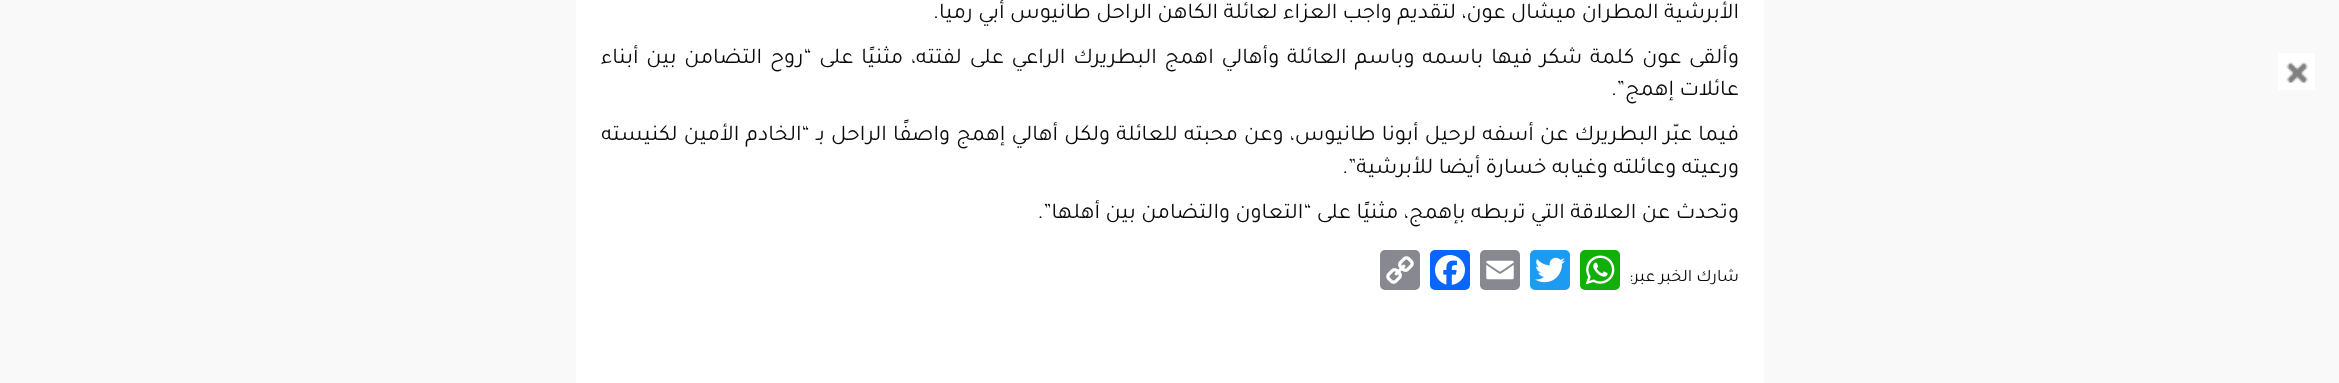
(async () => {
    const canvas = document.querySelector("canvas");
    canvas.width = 2339;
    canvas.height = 383;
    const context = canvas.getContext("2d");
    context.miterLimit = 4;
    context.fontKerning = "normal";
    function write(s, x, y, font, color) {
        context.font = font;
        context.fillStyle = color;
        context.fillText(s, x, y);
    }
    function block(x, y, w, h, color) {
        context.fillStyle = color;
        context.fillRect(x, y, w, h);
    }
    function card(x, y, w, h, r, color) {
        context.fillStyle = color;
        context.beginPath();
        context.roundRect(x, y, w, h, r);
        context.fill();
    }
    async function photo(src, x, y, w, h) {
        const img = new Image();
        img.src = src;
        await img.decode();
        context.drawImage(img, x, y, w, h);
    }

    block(0, 0, 2339, 383, "rgb(249, 249, 249)");
    await photo("media/1.png", 2278, 53, 37, 37);
    block(576, 0, 1188, 383, "rgb(255, 255, 255)");
    context.direction = "rtl";
    write("الأبرشية المطران ميشال عون، لتقديم واجب العزاء لعائلة الكاهن الراحل طانيوس أبي رميا.", 1739, 18, "22.5px Tajawal", "rgb(10, 10, 10)");
    context.wordSpacing = "2.4px";
    write("وألقى عون كلمة شكر فيها باسمه وباسم العائلة وأهالي اهمج البطريرك الراعي على لفتته، مثنيًا على “روح التضامن بين أبناء", 1739, 63, "22.5px Tajawal", "rgb(10, 10, 10)");
    context.wordSpacing = "0px";
    write("عائلات إهمج”.", 1739, 95, "22.5px Tajawal", "rgb(10, 10, 10)");
    context.wordSpacing = "0.7px";
    write("فيما عبّر البطريرك عن أسفه لرحيل أبونا طانيوس، وعن محبته للعائلة ولكل أهالي إهمج واصفًا الراحل بـ “الخادم الأمين لكنيسته", 1739, 140, "22.5px Tajawal", "rgb(10, 10, 10)");
    context.wordSpacing = "0px";
    write("ورعيته وعائلته وغيابه خسارة أيضا للأبرشية”.", 1739, 173, "22.5px Tajawal", "rgb(10, 10, 10)");
    write("وتحدث عن العلاقة التي تربطه بإهمج، مثنيًا على “التعاون والتضامن بين أهلها”.", 1739, 218, "22.5px Tajawal", "rgb(10, 10, 10)");
    write("شارك الخبر عبر:", 1739, 281, "17.5px Tajawal", "rgb(10, 10, 10)");
    card(1580, 250, 40, 40, 5, "rgb(18, 175, 10)");
    await photo("media/2.png", 1585, 255, 30, 30);
    card(1530, 250, 40, 40, 5, "rgb(29, 155, 240)");
    await photo("media/3.png", 1535, 257, 30, 26);
    card(1480, 250, 40, 40, 5, "rgb(136, 137, 144)");
    await photo("media/4.png", 1486, 260, 28, 20);
    card(1430, 250, 40, 40, 5, "rgb(8, 102, 255)");
    await photo("media/5.png", 1435, 255, 30, 30);
    card(1380, 250, 40, 40, 5, "rgb(136, 137, 144)");
    await photo("media/6.png", 1386, 256, 28, 28);
})();
